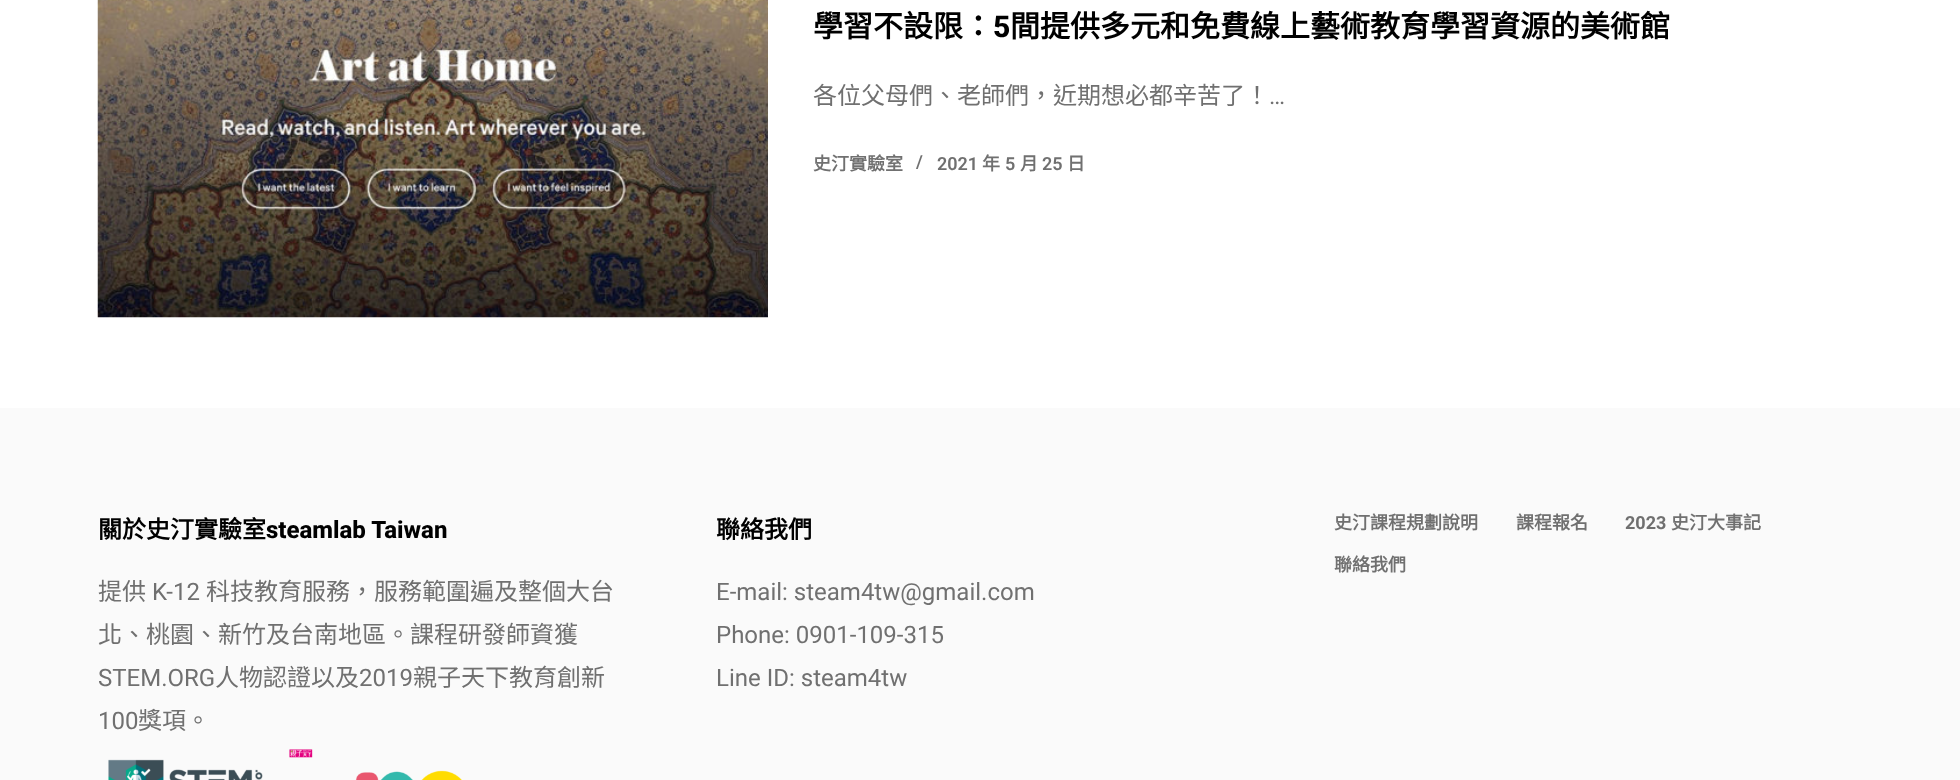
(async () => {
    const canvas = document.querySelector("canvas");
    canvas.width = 1960;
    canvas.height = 780;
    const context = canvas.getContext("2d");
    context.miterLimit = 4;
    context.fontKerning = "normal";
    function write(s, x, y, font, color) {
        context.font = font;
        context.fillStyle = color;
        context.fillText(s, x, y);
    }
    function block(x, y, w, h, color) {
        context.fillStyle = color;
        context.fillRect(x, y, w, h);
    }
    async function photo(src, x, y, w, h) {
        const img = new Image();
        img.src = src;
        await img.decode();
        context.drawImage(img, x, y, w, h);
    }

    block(0, 0, 1960, 780, "rgb(255, 255, 255)");
    await photo("media/1.png", 97, 0, 671, 318);
    write("學習不設限：", 813, 37, "bold 30px Noto Sans CJK TC", "rgb(0, 0, 0)");
    write("5", 993, 37, "800 30px Roboto", "rgb(0, 0, 0)");
    write("間提供多元和免費線上藝術教育學習資源的美術館", 1010, 37, "bold 30px Noto Sans CJK TC", "rgb(0, 0, 0)");
    write("各位父母們、老師們，近期想必都辛苦了！", 813, 104, "24px Noto Sans CJK TC", "rgb(112, 112, 112)");
    write("…", 1269, 104, "24px Roboto", "rgb(112, 112, 112)");
    write("史汀實驗室", 813, 170, "bold 18px Noto Sans CJK TC", "rgb(112, 112, 112)");
    write("/", 916, 168, "600 18px Roboto", "rgb(112, 112, 112)");
    write("2021", 937, 170, "600 18px Roboto", "rgb(112, 112, 112)");
    write("年", 982, 170, "bold 18px Noto Sans CJK TC", "rgb(112, 112, 112)");
    write("5", 1005, 170, "600 18px Roboto", "rgb(112, 112, 112)");
    write("月", 1020, 170, "bold 18px Noto Sans CJK TC", "rgb(112, 112, 112)");
    write("25", 1042, 170, "600 18px Roboto", "rgb(112, 112, 112)");
    write("日", 1067, 170, "bold 18px Noto Sans CJK TC", "rgb(112, 112, 112)");
    block(0, 408, 1960, 372, "rgb(250, 250, 250)");
    write("關於史汀實驗室", 98, 538, "bold 24px Noto Sans CJK TC", "rgb(0, 0, 0)");
    write("steamlab Taiwan", 266, 538, "800 24px Roboto", "rgb(0, 0, 0)");
    write("提供", 98, 600, "24px Noto Sans CJK TC", "rgb(112, 112, 112)");
    write("K-12", 152, 600, "24px Roboto", "rgb(112, 112, 112)");
    write("科技教育服務，服務範圍遍及整個大台", 206, 600, "24px Noto Sans CJK TC", "rgb(112, 112, 112)");
    write("北、桃園、新竹及台南地區。課程研發師資獲", 98, 643, "24px Noto Sans CJK TC", "rgb(112, 112, 112)");
    write("STEM.ORG", 98, 686, "24px Roboto", "rgb(112, 112, 112)");
    write("人物認證以及", 215, 686, "24px Noto Sans CJK TC", "rgb(112, 112, 112)");
    write("2019", 359, 686, "24px Roboto", "rgb(112, 112, 112)");
    write("親子天下教育創新", 413, 686, "24px Noto Sans CJK TC", "rgb(112, 112, 112)");
    write("100", 98, 729, "24px Roboto", "rgb(112, 112, 112)");
    write("獎項。", 138, 729, "24px Noto Sans CJK TC", "rgb(112, 112, 112)");
    await photo("media/2.png", 108, 759, 155, 21);
    await photo("media/3.png", 289, 749, 173, 31);
    write("聯絡我們", 716, 538, "bold 24px Noto Sans CJK TC", "rgb(0, 0, 0)");
    write("E-mail: steam4tw@gmail.com", 716, 600, "24px Roboto", "rgb(112, 112, 112)");
    write("Phone: 0901-109-315", 716, 643, "24px Roboto", "rgb(112, 112, 112)");
    write("Line ID: steam4tw", 716, 686, "24px Roboto", "rgb(112, 112, 112)");
    write("史汀課程規劃說明", 1334, 529, "bold 18px Noto Sans CJK TC", "rgb(112, 112, 112)");
    write("課程報名", 1516, 529, "bold 18px Noto Sans CJK TC", "rgb(112, 112, 112)");
    write("2023", 1625, 529, "bold 18px Roboto", "rgb(112, 112, 112)");
    write("史汀大事記", 1671, 529, "bold 18px Noto Sans CJK TC", "rgb(112, 112, 112)");
    write("聯絡我們", 1334, 571, "bold 18px Noto Sans CJK TC", "rgb(112, 112, 112)");
})();
